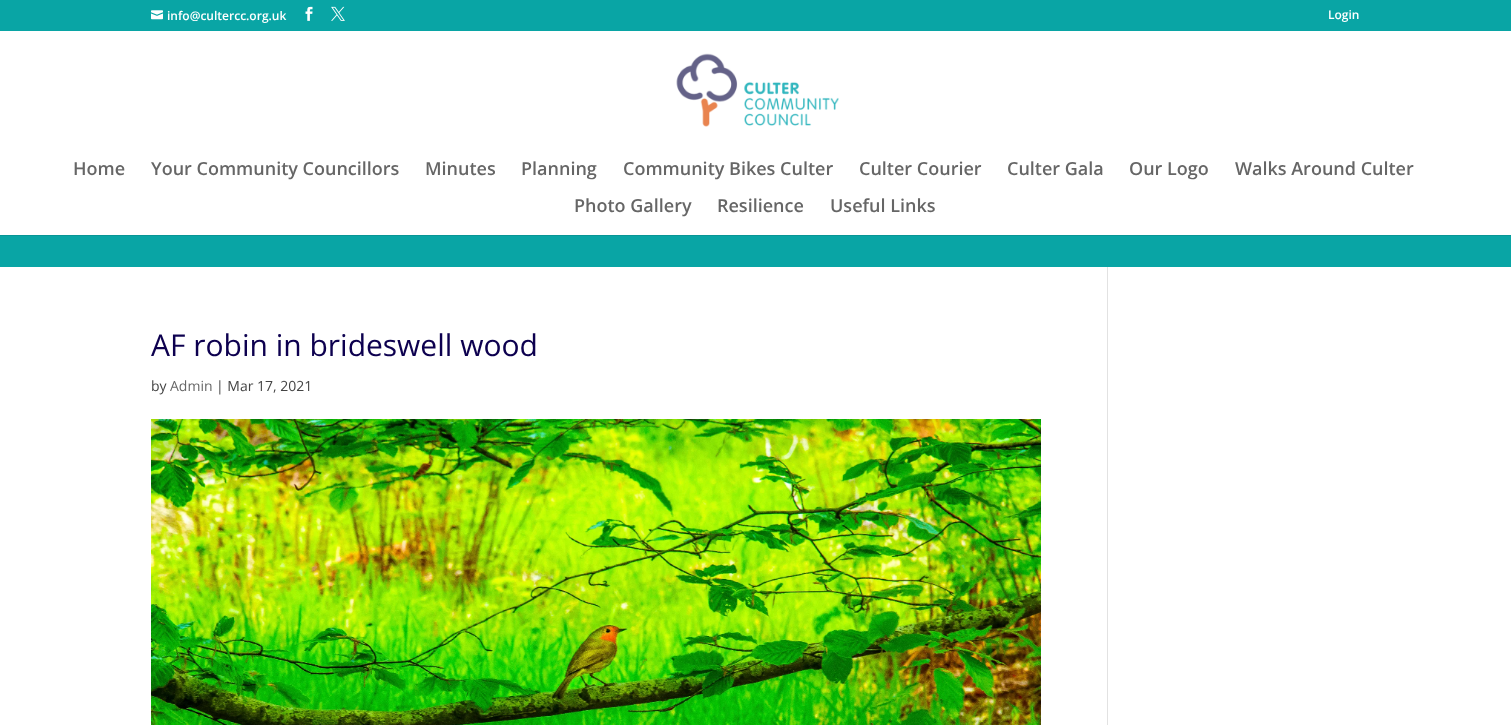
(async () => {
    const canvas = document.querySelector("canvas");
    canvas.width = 1511;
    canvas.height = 725;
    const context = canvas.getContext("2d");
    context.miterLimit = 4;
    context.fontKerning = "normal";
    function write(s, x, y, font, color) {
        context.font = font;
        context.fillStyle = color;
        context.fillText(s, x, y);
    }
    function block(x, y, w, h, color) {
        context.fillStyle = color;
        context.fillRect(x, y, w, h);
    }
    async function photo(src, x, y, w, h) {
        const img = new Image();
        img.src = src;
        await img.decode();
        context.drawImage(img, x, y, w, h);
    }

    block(0, 0, 1511, 725, "rgb(9, 165, 165)");
    await photo("media/1.png", 151, 10, 12, 10);
    write("info@cultercc.org.uk", 167, 20, "600 12px Open Sans", "rgb(255, 255, 255)");
    await photo("media/2.png", 305, 6, 8, 15);
    await photo("media/3.png", 331, 6, 14, 15);
    write("Login", 1328, 19, "600 12px Open Sans", "rgb(255, 255, 255)");
    block(0, 235, 1511, 1, "rgb(8, 149, 149)");
    block(0, 31, 1511, 204, "rgb(255, 255, 255)");
    await photo("media/4.png", 676, 53, 163, 74);
    write("Home", 73, 175, "600 18px Open Sans", "rgb(102, 102, 102)");
    write("Your Community Councillors", 151, 175, "600 18px Open Sans", "rgb(102, 102, 102)");
    write("Minutes", 425, 175, "600 18px Open Sans", "rgb(102, 102, 102)");
    write("Planning", 521, 175, "600 18px Open Sans", "rgb(102, 102, 102)");
    write("Community Bikes Culter", 623, 175, "600 18px Open Sans", "rgb(102, 102, 102)");
    write("Culter Courier", 859, 175, "600 18px Open Sans", "rgb(102, 102, 102)");
    write("Culter Gala", 1007, 175, "600 18px Open Sans", "rgb(102, 102, 102)");
    write("Our Logo", 1129, 175, "600 18px Open Sans", "rgb(102, 102, 102)");
    write("Walks Around Culter", 1235, 175, "600 18px Open Sans", "rgb(102, 102, 102)");
    write("Photo Gallery", 574, 212, "600 18px Open Sans", "rgb(102, 102, 102)");
    write("Resilience", 717, 212, "600 18px Open Sans", "rgb(102, 102, 102)");
    write("Useful Links", 830, 212, "600 18px Open Sans", "rgb(102, 102, 102)");
    block(0, 267, 1511, 458, "rgb(255, 255, 255)");
    write("AF robin in brideswell wood", 151, 356, "30px Open Sans", "rgb(13, 0, 79)");
    write("by", 151, 391, "14px Open Sans", "rgb(68, 68, 68)");
    write("Admin", 170, 391, "14px Open Sans", "rgb(102, 102, 102)");
    write("| Mar 17, 2021", 216, 391, "14px Open Sans", "rgb(68, 68, 68)");
    await photo("media/5.png", 151, 419, 890, 306);
    block(1107, 267, 1, 458, "rgb(226, 226, 226)");
})();
